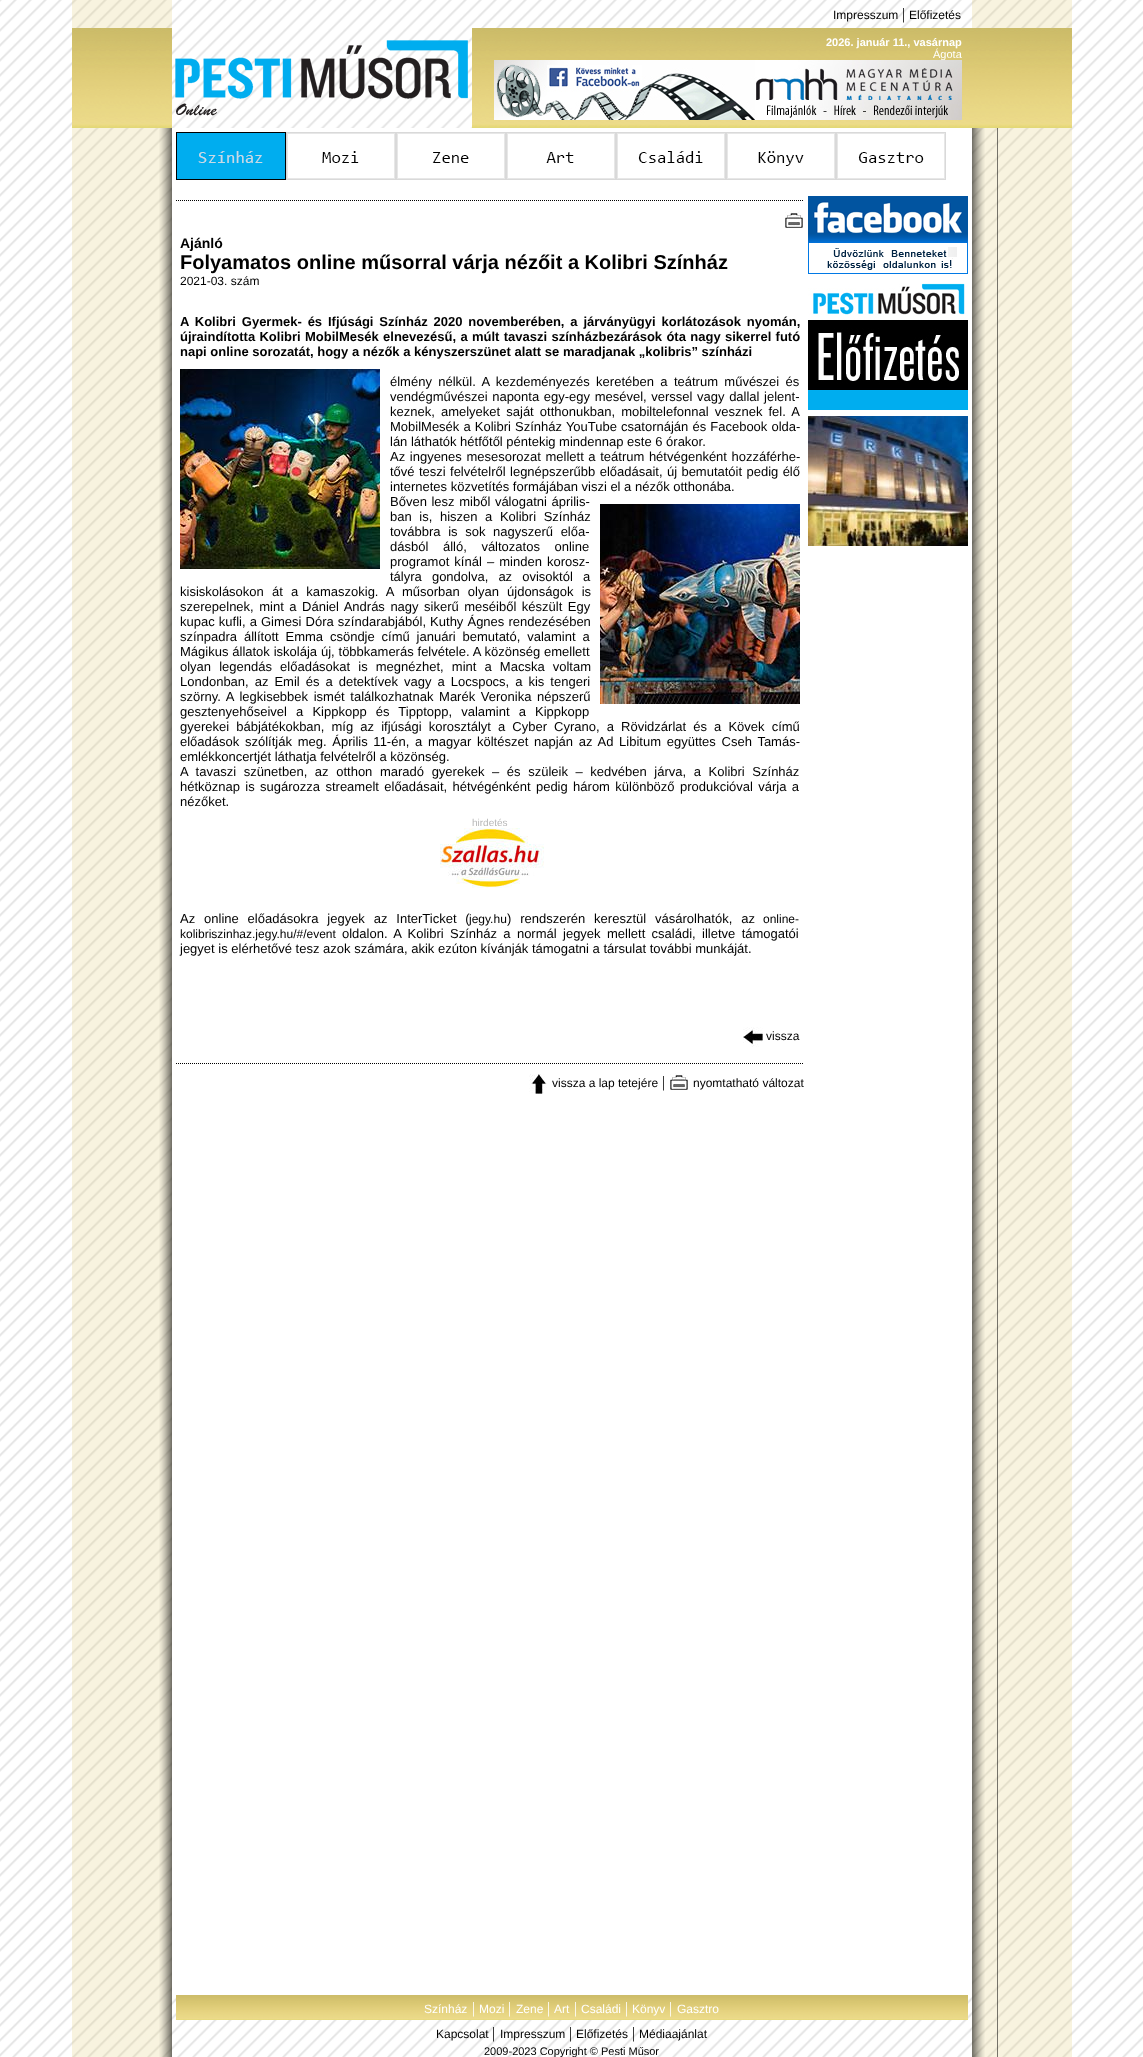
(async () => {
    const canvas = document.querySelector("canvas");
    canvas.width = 1143;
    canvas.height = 2057;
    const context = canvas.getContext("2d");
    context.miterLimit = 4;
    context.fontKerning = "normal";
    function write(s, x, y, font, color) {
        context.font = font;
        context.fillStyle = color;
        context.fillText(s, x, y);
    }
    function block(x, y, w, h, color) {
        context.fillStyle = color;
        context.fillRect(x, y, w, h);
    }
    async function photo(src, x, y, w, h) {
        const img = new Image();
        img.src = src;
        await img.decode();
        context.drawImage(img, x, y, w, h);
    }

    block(0, 0, 1143, 2057, "rgb(255, 255, 255)");
    await photo("media/1.png", 0, 0, 1143, 2057);
    block(72, 0, 100, 28, "rgba(227, 207, 128, 0.25)");
    write("Impresszum", 833, 19, "12px Liberation Sans", "rgb(0, 0, 0)");
    write("|", 902, 19, "16px Liberation Serif", "rgb(0, 0, 0)");
    write("Előfizetés", 909, 19, "12px Liberation Sans", "rgb(0, 0, 0)");
    block(972, 0, 100, 28, "rgba(227, 207, 128, 0.25)");
    await photo("media/2.png", 72, 28, 100, 100);
    await photo("media/3.png", 175, 40, 293, 76);
    await photo("media/4.png", 472, 28, 500, 100);
    write("2026. január 11., vasárnap", 826, 46, "bold 11px Liberation Sans", "rgb(255, 255, 255)");
    write("Ágota", 933, 58, "11px Liberation Sans", "rgb(255, 255, 255)");
    await photo("media/5.png", 494, 60, 468, 60);
    await photo("media/2.png", 972, 28, 100, 100);
    block(72, 128, 100, 1867, "rgba(227, 207, 128, 0.25)");
    await photo("media/6.png", 159, 128, 13, 1867);
    block(172, 128, 800, 1867, "rgb(255, 255, 255)");
    await photo("media/7.png", 176, 132, 110, 48);
    await photo("media/8.png", 286, 132, 110, 48);
    await photo("media/9.png", 396, 132, 110, 48);
    await photo("media/10.png", 506, 132, 110, 48);
    await photo("media/11.png", 616, 132, 110, 48);
    await photo("media/12.png", 726, 132, 110, 48);
    await photo("media/13.png", 836, 132, 110, 48);
    await photo("media/14.png", 176, 200, 627, 1);
    await photo("media/15.png", 785, 211, 18, 17);
    write("Ajánló", 180, 248, "bold 14px Liberation Sans", "rgb(0, 0, 0)");
    write("Folyamatos online műsorral várja nézőit a Kolibri Színház", 180, 269, "bold 20px Liberation Sans", "rgb(0, 0, 0)");
    write("2021-03. szám", 180, 285, "12px Liberation Sans", "rgb(0, 0, 0)");
    context.wordSpacing = "2.25px";
    write("A Kolibri Gyermek- és Ifjúsági Színház 2020 novemberében, a járványügyi korlátozások nyomán,", 180, 326, "bold 13px Liberation Sans", "rgb(0, 0, 0)");
    context.wordSpacing = "0.75px";
    write("újraindította Kolibri MobilMesék elnevezésű, a múlt tavaszi színházbezárások óta nagy sikerrel futó", 180, 341, "bold 13px Liberation Sans", "rgb(0, 0, 0)");
    context.wordSpacing = "0px";
    write("napi online sorozatát, hogy a nézők a kényszerszünet alatt se maradjanak „kolibris” színházi", 180, 356, "bold 13px Liberation Sans", "rgb(0, 0, 0)");
    await photo("media/16.png", 180, 369, 200, 200);
    context.wordSpacing = "2.75px";
    write("élmény nélkül. A kezdeményezés keretében a teátrum művészei és", 390, 386, "13px Liberation Sans", "rgb(0, 0, 0)");
    context.wordSpacing = "1px";
    write("vendégművészei naponta egy-egy mesével, verssel vagy dallal jelent-", 390, 401, "13px Liberation Sans", "rgb(0, 0, 0)");
    context.wordSpacing = "2.5px";
    write("keznek, amelyeket saját otthonukban, mobiltelefonnal vesznek fel. A", 390, 416, "13px Liberation Sans", "rgb(0, 0, 0)");
    context.wordSpacing = "0.5px";
    write("MobilMesék a Kolibri Színház YouTube csatornáján és Facebook olda-", 390, 431, "13px Liberation Sans", "rgb(0, 0, 0)");
    context.wordSpacing = "0px";
    write("lán láthatók hétfőtől péntekig mindennap este 6 órakor.", 390, 446, "13px Liberation Sans", "rgb(0, 0, 0)");
    context.wordSpacing = "1px";
    write("Az ingyenes mesesorozat mellett a teátrum hétvégenként hozzáférhe-", 390, 461, "13px Liberation Sans", "rgb(0, 0, 0)");
    context.wordSpacing = "0.75px";
    write("tővé teszi felvételről legnépszerűbb előadásait, új bemutatóit pedig élő", 390, 476, "13px Liberation Sans", "rgb(0, 0, 0)");
    context.wordSpacing = "0px";
    write("internetes közvetítés formájában viszi el a nézők otthonába.", 390, 491, "13px Liberation Sans", "rgb(0, 0, 0)");
    context.wordSpacing = "1px";
    write("Bőven lesz miből válogatni április-", 390, 506, "13px Liberation Sans", "rgb(0, 0, 0)");
    context.wordSpacing = "4px";
    write("ban is, hiszen a Kolibri Színház", 390, 521, "13px Liberation Sans", "rgb(0, 0, 0)");
    await photo("media/17.png", 600, 504, 200, 200);
    write("továbbra is sok nagyszerű előa-", 390, 536, "13px Liberation Sans", "rgb(0, 0, 0)");
    context.wordSpacing = "11px";
    write("dásból álló, változatos online", 390, 551, "13px Liberation Sans", "rgb(0, 0, 0)");
    context.wordSpacing = "1.5px";
    write("programot kínál – minden korosz-", 390, 566, "13px Liberation Sans", "rgb(0, 0, 0)");
    context.wordSpacing = "6.5px";
    write("tályra gondolva, az ovisoktól a", 390, 581, "13px Liberation Sans", "rgb(0, 0, 0)");
    context.wordSpacing = "4.5px";
    write("kisiskolásokon át a kamaszokig. A műsorban olyan újdonságok is", 180, 596, "13px Liberation Sans", "rgb(0, 0, 0)");
    context.wordSpacing = "1.9px";
    write("szerepelnek, mint a Dániel András nagy sikerű meséiből készült Egy", 180, 611, "13px Liberation Sans", "rgb(0, 0, 0)");
    context.wordSpacing = "0.5px";
    write("kupac kufli, a Gimesi Dóra színdarabjából, Kuthy Ágnes rendezésében", 180, 626, "13px Liberation Sans", "rgb(0, 0, 0)");
    context.wordSpacing = "3.25px";
    write("színpadra állított Emma csöndje című januári bemutató, valamint a", 180, 641, "13px Liberation Sans", "rgb(0, 0, 0)");
    context.wordSpacing = "0.25px";
    write("Mágikus állatok iskolája új, többkamerás felvétele. A közönség emellett", 180, 656, "13px Liberation Sans", "rgb(0, 0, 0)");
    context.wordSpacing = "4.5px";
    write("olyan legendás előadásokat is megnézhet, mint a Macska voltam", 180, 671, "13px Liberation Sans", "rgb(0, 0, 0)");
    context.wordSpacing = "2.4px";
    write("Londonban, az Emil és a detektívek vagy a Locspocs, a kis tengeri", 180, 686, "13px Liberation Sans", "rgb(0, 0, 0)");
    context.wordSpacing = "2px";
    write("szörny. A legkisebbek ismét találkozhatnak Marék Veronika népszerű", 180, 701, "13px Liberation Sans", "rgb(0, 0, 0)");
    context.wordSpacing = "5.5px";
    write("gesztenyehőseivel a Kippkopp és Tipptopp, valamint a Kippkopp", 180, 716, "13px Liberation Sans", "rgb(0, 0, 0)");
    context.wordSpacing = "3.5px";
    write("gyerekei bábjátékokban, míg az ifjúsági korosztályt a Cyber Cyrano, a Rövidzárlat és a Kövek című", 180, 731, "13px Liberation Sans", "rgb(0, 0, 0)");
    context.wordSpacing = "2.1px";
    write("előadások szólítják meg. Április 11-én, a magyar költészet napján az Ad Libitum együttes Cseh Tamás-", 180, 746, "13px Liberation Sans", "rgb(0, 0, 0)");
    context.wordSpacing = "0px";
    write("emlékkoncertjét láthatja felvételről a közönség.", 180, 761, "13px Liberation Sans", "rgb(0, 0, 0)");
    context.wordSpacing = "4px";
    write("A tavaszi szünetben, az otthon maradó gyerekek – és szüleik – kedvében járva, a Kolibri Színház", 180, 776, "13px Liberation Sans", "rgb(0, 0, 0)");
    context.wordSpacing = "1.75px";
    write("hétköznap is sugározza streamelt előadásait, hétvégénként pedig három különböző produkcióval várja a", 180, 791, "13px Liberation Sans", "rgb(0, 0, 0)");
    context.wordSpacing = "0px";
    write("nézőket.", 180, 806, "13px Liberation Sans", "rgb(0, 0, 0)");
    write("hirdetés", 472, 826, "10px Liberation Sans", "rgb(183, 183, 183)");
    await photo("media/18.png", 440, 828, 104, 60);
    context.wordSpacing = "5.25px";
    write("Az online előadásokra jegyek az InterTicket (", 180, 923, "13px Liberation Sans", "rgb(0, 0, 0)");
    context.wordSpacing = "0px";
    write("jegy.hu", 469, 923, "12px Liberation Sans", "rgb(0, 0, 0)");
    context.wordSpacing = "5.25px";
    write(") rendszerén keresztül vásárolhatók, az", 507, 923, "13px Liberation Sans", "rgb(0, 0, 0)");
    context.wordSpacing = "0px";
    write("online-", 763, 923, "12px Liberation Sans", "rgb(0, 0, 0)");
    write("kolibriszinhaz.jegy.hu/#/event", 180, 938, "12px Liberation Sans", "rgb(0, 0, 0)");
    context.wordSpacing = "2.75px";
    write("oldalon. A Kolibri Színház a normál jegyek mellett családi, illetve támogatói", 342, 938, "13px Liberation Sans", "rgb(0, 0, 0)");
    context.wordSpacing = "0px";
    write("jegyet is elérhetővé tesz azok számára, akik ezúton kívánják támogatni a társulat további munkáját.", 180, 953, "13px Liberation Sans", "rgb(0, 0, 0)");
    await photo("media/19.png", 743, 1027, 20, 20);
    write("vissza", 766, 1040, "12px Liberation Sans", "rgb(0, 0, 0)");
    await photo("media/14.png", 176, 1063, 627, 1);
    await photo("media/20.png", 529, 1074, 18, 20);
    write("vissza a lap tetejére", 552, 1087, "12px Liberation Sans", "rgb(0, 0, 0)");
    write("|", 662, 1087, "16px Liberation Serif", "rgb(0, 0, 0)");
    await photo("media/15.png", 670, 1073, 18, 17);
    write("nyomtatható változat", 693, 1087, "12px Liberation Sans", "rgb(0, 0, 0)");
    await photo("media/21.png", 808, 196, 160, 78);
    await photo("media/22.png", 808, 283, 160, 127);
    await photo("media/23.png", 808, 416, 160, 130);
    block(972, 128, 100, 1867, "rgba(227, 207, 128, 0.25)");
    await photo("media/24.png", 972, 128, 26, 1867);
    block(72, 1995, 100, 62, "rgba(227, 207, 128, 0.25)");
    await photo("media/25.png", 159, 1995, 13, 62);
    await photo("media/26.png", 176, 1995, 792, 25);
    write("Színház", 424, 2013, "12px Liberation Sans", "rgb(255, 255, 255)");
    write("|", 472, 2013, "16px Liberation Serif", "rgb(255, 255, 255)");
    write("Mozi", 479, 2013, "12px Liberation Sans", "rgb(255, 255, 255)");
    write("|", 508, 2013, "16px Liberation Serif", "rgb(255, 255, 255)");
    write("Zene", 516, 2013, "12px Liberation Sans", "rgb(255, 255, 255)");
    write("|", 547, 2013, "16px Liberation Serif", "rgb(255, 255, 255)");
    write("Art", 554, 2013, "12px Liberation Sans", "rgb(255, 255, 255)");
    write("|", 574, 2013, "16px Liberation Serif", "rgb(255, 255, 255)");
    write("Családi", 581, 2013, "12px Liberation Sans", "rgb(255, 255, 255)");
    write("|", 625, 2013, "16px Liberation Serif", "rgb(255, 255, 255)");
    write("Könyv", 632, 2013, "12px Liberation Sans", "rgb(255, 255, 255)");
    write("|", 669, 2013, "16px Liberation Serif", "rgb(255, 255, 255)");
    write("Gasztro", 677, 2013, "12px Liberation Sans", "rgb(255, 255, 255)");
    write("Kapcsolat", 436, 2038, "12px Liberation Sans", "rgb(0, 0, 0)");
    write("|", 492, 2038, "16px Liberation Serif", "rgb(0, 0, 0)");
    write("Impresszum", 500, 2038, "12px Liberation Sans", "rgb(0, 0, 0)");
    write("|", 569, 2038, "16px Liberation Serif", "rgb(0, 0, 0)");
    write("Előfizetés", 576, 2038, "12px Liberation Sans", "rgb(0, 0, 0)");
    write("|", 632, 2038, "16px Liberation Serif", "rgb(0, 0, 0)");
    write("Médiaajánlat", 639, 2038, "12px Liberation Sans", "rgb(0, 0, 0)");
    write("2009-2023 Copyright © Pesti Műsor", 484, 2055, "11px Liberation Sans", "rgb(0, 0, 0)");
    block(972, 1995, 100, 62, "rgba(227, 207, 128, 0.25)");
    await photo("media/27.png", 972, 1995, 26, 62);
})();
